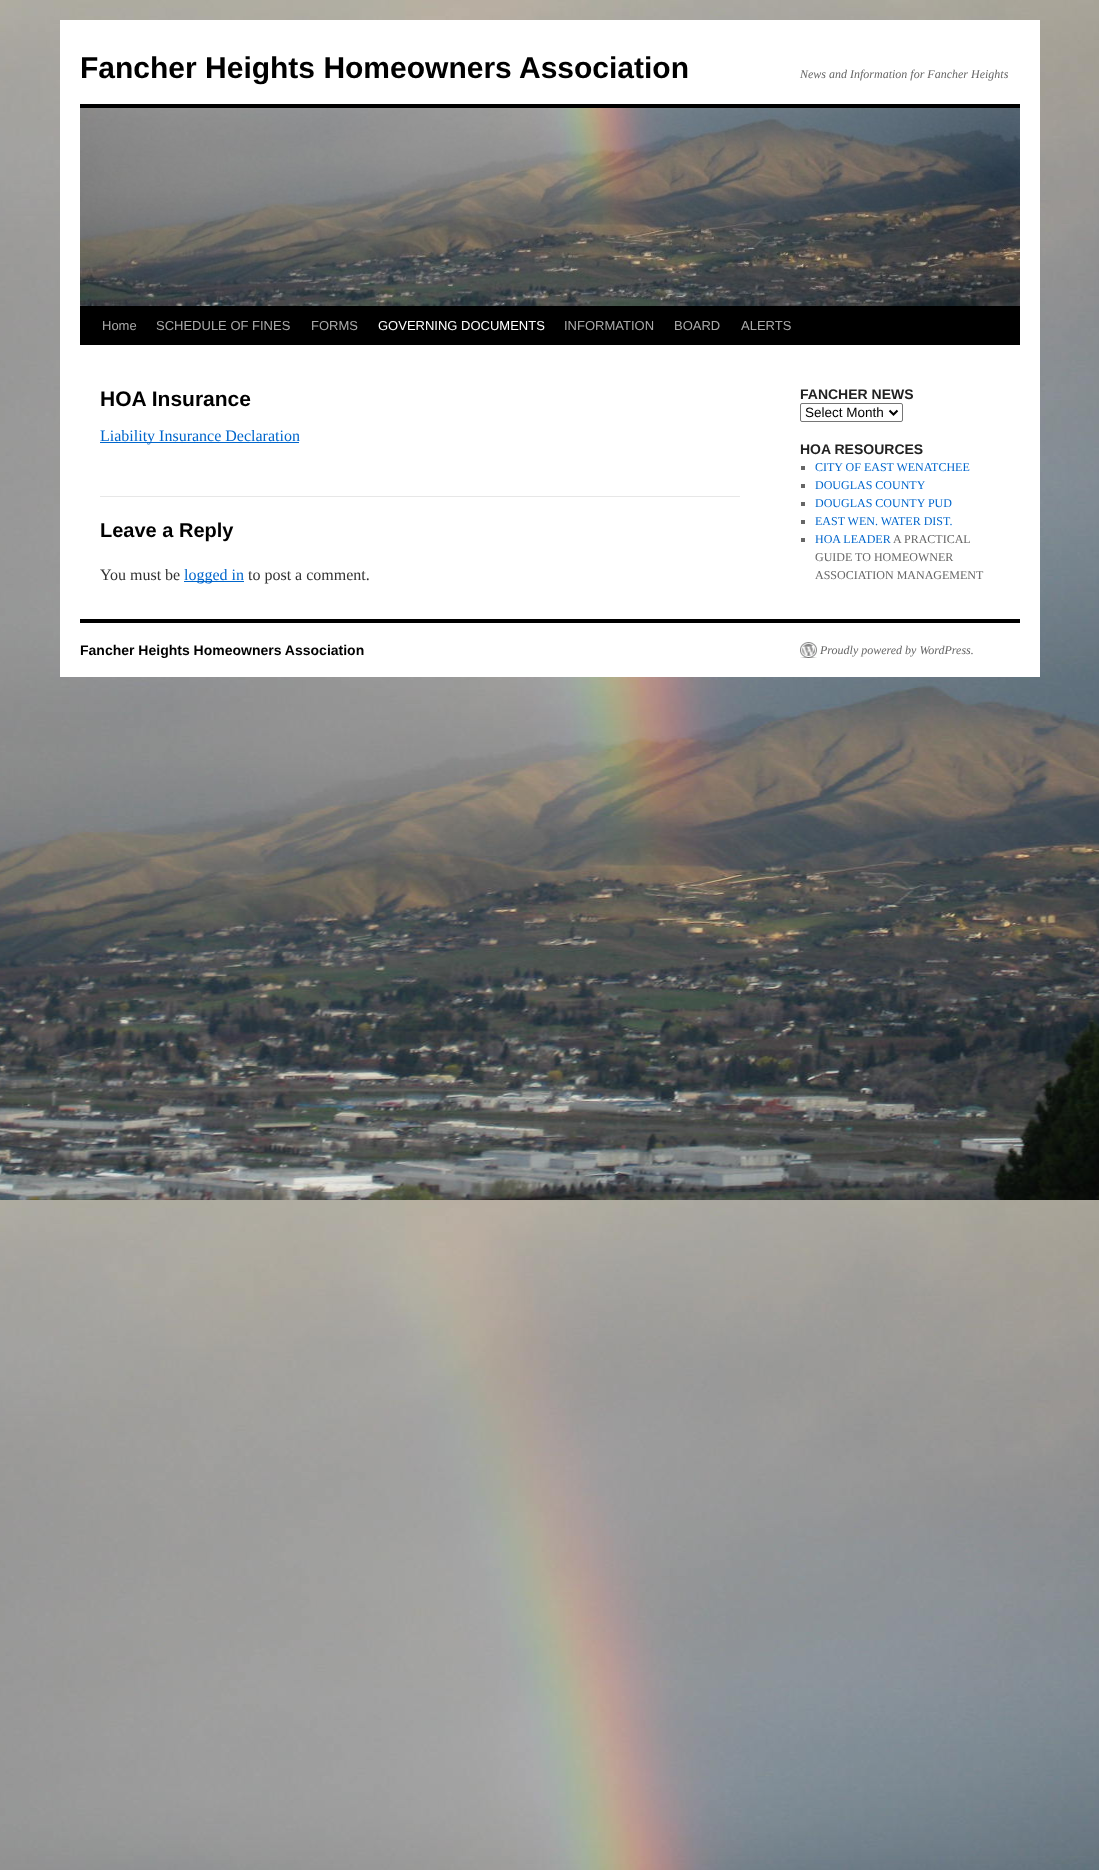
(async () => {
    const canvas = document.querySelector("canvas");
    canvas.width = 1099;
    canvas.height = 1870;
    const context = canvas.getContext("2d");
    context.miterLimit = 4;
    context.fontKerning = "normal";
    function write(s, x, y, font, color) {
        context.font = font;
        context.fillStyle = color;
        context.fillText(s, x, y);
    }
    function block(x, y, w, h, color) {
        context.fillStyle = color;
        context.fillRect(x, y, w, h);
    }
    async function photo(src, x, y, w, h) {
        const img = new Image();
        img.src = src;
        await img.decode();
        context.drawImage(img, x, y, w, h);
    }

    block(0, 0, 1099, 1870, "rgb(255, 255, 255)");
    await photo("media/1.png", 0, 0, 1099, 1870);
    block(60, 20, 980, 657, "rgb(255, 255, 255)");
    write("Fancher Heights Homeowners Association", 80, 78, "bold 30px Liberation Sans", "rgb(0, 0, 0)");
    write("News and Information for Fancher Heights", 800, 78, "italic 12px Liberation Serif", "rgb(102, 102, 102)");
    block(80, 104, 940, 4, "rgb(0, 0, 0)");
    block(80, 306, 940, 39, "rgb(0, 0, 0)");
    await photo("media/2.png", 80, 108, 940, 198);
    write("Home", 102, 330, "13px Liberation Sans", "rgb(170, 170, 170)");
    write("SCHEDULE OF FINES", 156, 330, "13px Liberation Sans", "rgb(170, 170, 170)");
    write("FORMS", 311, 330, "13px Liberation Sans", "rgb(170, 170, 170)");
    write("GOVERNING DOCUMENTS", 378, 330, "13px Liberation Sans", "rgb(255, 255, 255)");
    write("INFORMATION", 564, 330, "13px Liberation Sans", "rgb(170, 170, 170)");
    write("BOARD", 674, 330, "13px Liberation Sans", "rgb(170, 170, 170)");
    write("ALERTS", 741, 330, "13px Liberation Sans", "rgb(170, 170, 170)");
    write("HOA Insurance", 100, 406, "bold 21px Liberation Sans", "rgb(0, 0, 0)");
    block(100, 442, 199, 1, "rgb(0, 102, 204)");
    write("Liability Insurance Declaration", 100, 441, "16px Liberation Serif", "rgb(0, 102, 204)");
    block(100, 496, 640, 1, "rgb(231, 231, 231)");
    write("Leave a Reply", 100, 537, "bold 20px Liberation Sans", "rgb(0, 0, 0)");
    write("You must be", 100, 580, "16px Liberation Serif", "rgb(51, 51, 51)");
    block(184, 581, 60, 1, "rgb(0, 102, 204)");
    write("logged in", 184, 580, "16px Liberation Serif", "rgb(0, 102, 204)");
    write("to post a comment.", 248, 580, "16px Liberation Serif", "rgb(51, 51, 51)");
    write("FANCHER NEWS", 800, 399, "bold 14px Liberation Sans", "rgb(34, 34, 34)");
    context.beginPath();
    context.roundRect(800.5, 403.5, 102, 18, 1.5);
    context.strokeStyle = "rgb(118, 118, 118)";
    context.stroke();
    context.beginPath();
    context.moveTo(889.5, 410.5);
    context.lineTo(893.5, 414.5);
    context.lineTo(897.5, 410.5);
    context.strokeStyle = "rgb(0, 0, 0)";
    context.lineWidth = 2;
    context.stroke();
    write("Select Month", 805, 417, "13.5px Liberation Sans", "rgb(0, 0, 0)");
    write("HOA RESOURCES", 800, 454, "bold 14px Liberation Sans", "rgb(34, 34, 34)");
    block(801, 466, 4, 4, "rgb(102, 102, 102)");
    write("CITY OF EAST WENATCHEE", 815, 471, "12px Liberation Serif", "rgb(0, 102, 204)");
    block(801, 484, 4, 4, "rgb(102, 102, 102)");
    write("DOUGLAS COUNTY", 815, 489, "12px Liberation Serif", "rgb(0, 102, 204)");
    block(801, 502, 4, 4, "rgb(102, 102, 102)");
    write("DOUGLAS COUNTY PUD", 815, 507, "12px Liberation Serif", "rgb(0, 102, 204)");
    block(801, 520, 4, 4, "rgb(102, 102, 102)");
    write("EAST WEN. WATER DIST.", 815, 525, "12px Liberation Serif", "rgb(0, 102, 204)");
    block(801, 538, 4, 4, "rgb(102, 102, 102)");
    write("HOA LEADER", 815, 543, "12px Liberation Serif", "rgb(0, 102, 204)");
    write("A PRACTICAL", 893, 543, "12px Liberation Serif", "rgb(102, 102, 102)");
    write("GUIDE TO HOMEOWNER", 815, 561, "12px Liberation Serif", "rgb(102, 102, 102)");
    write("ASSOCIATION MANAGEMENT", 815, 579, "12px Liberation Serif", "rgb(102, 102, 102)");
    block(80, 619, 940, 4, "rgb(0, 0, 0)");
    write("Fancher Heights Homeowners Association", 80, 655, "bold 14px Liberation Sans", "rgb(0, 0, 0)");
    await photo("media/3.png", 800, 642, 17, 16);
    write("Proudly powered by WordPress.", 820, 654, "italic 12px Liberation Serif", "rgb(102, 102, 102)");
})();
